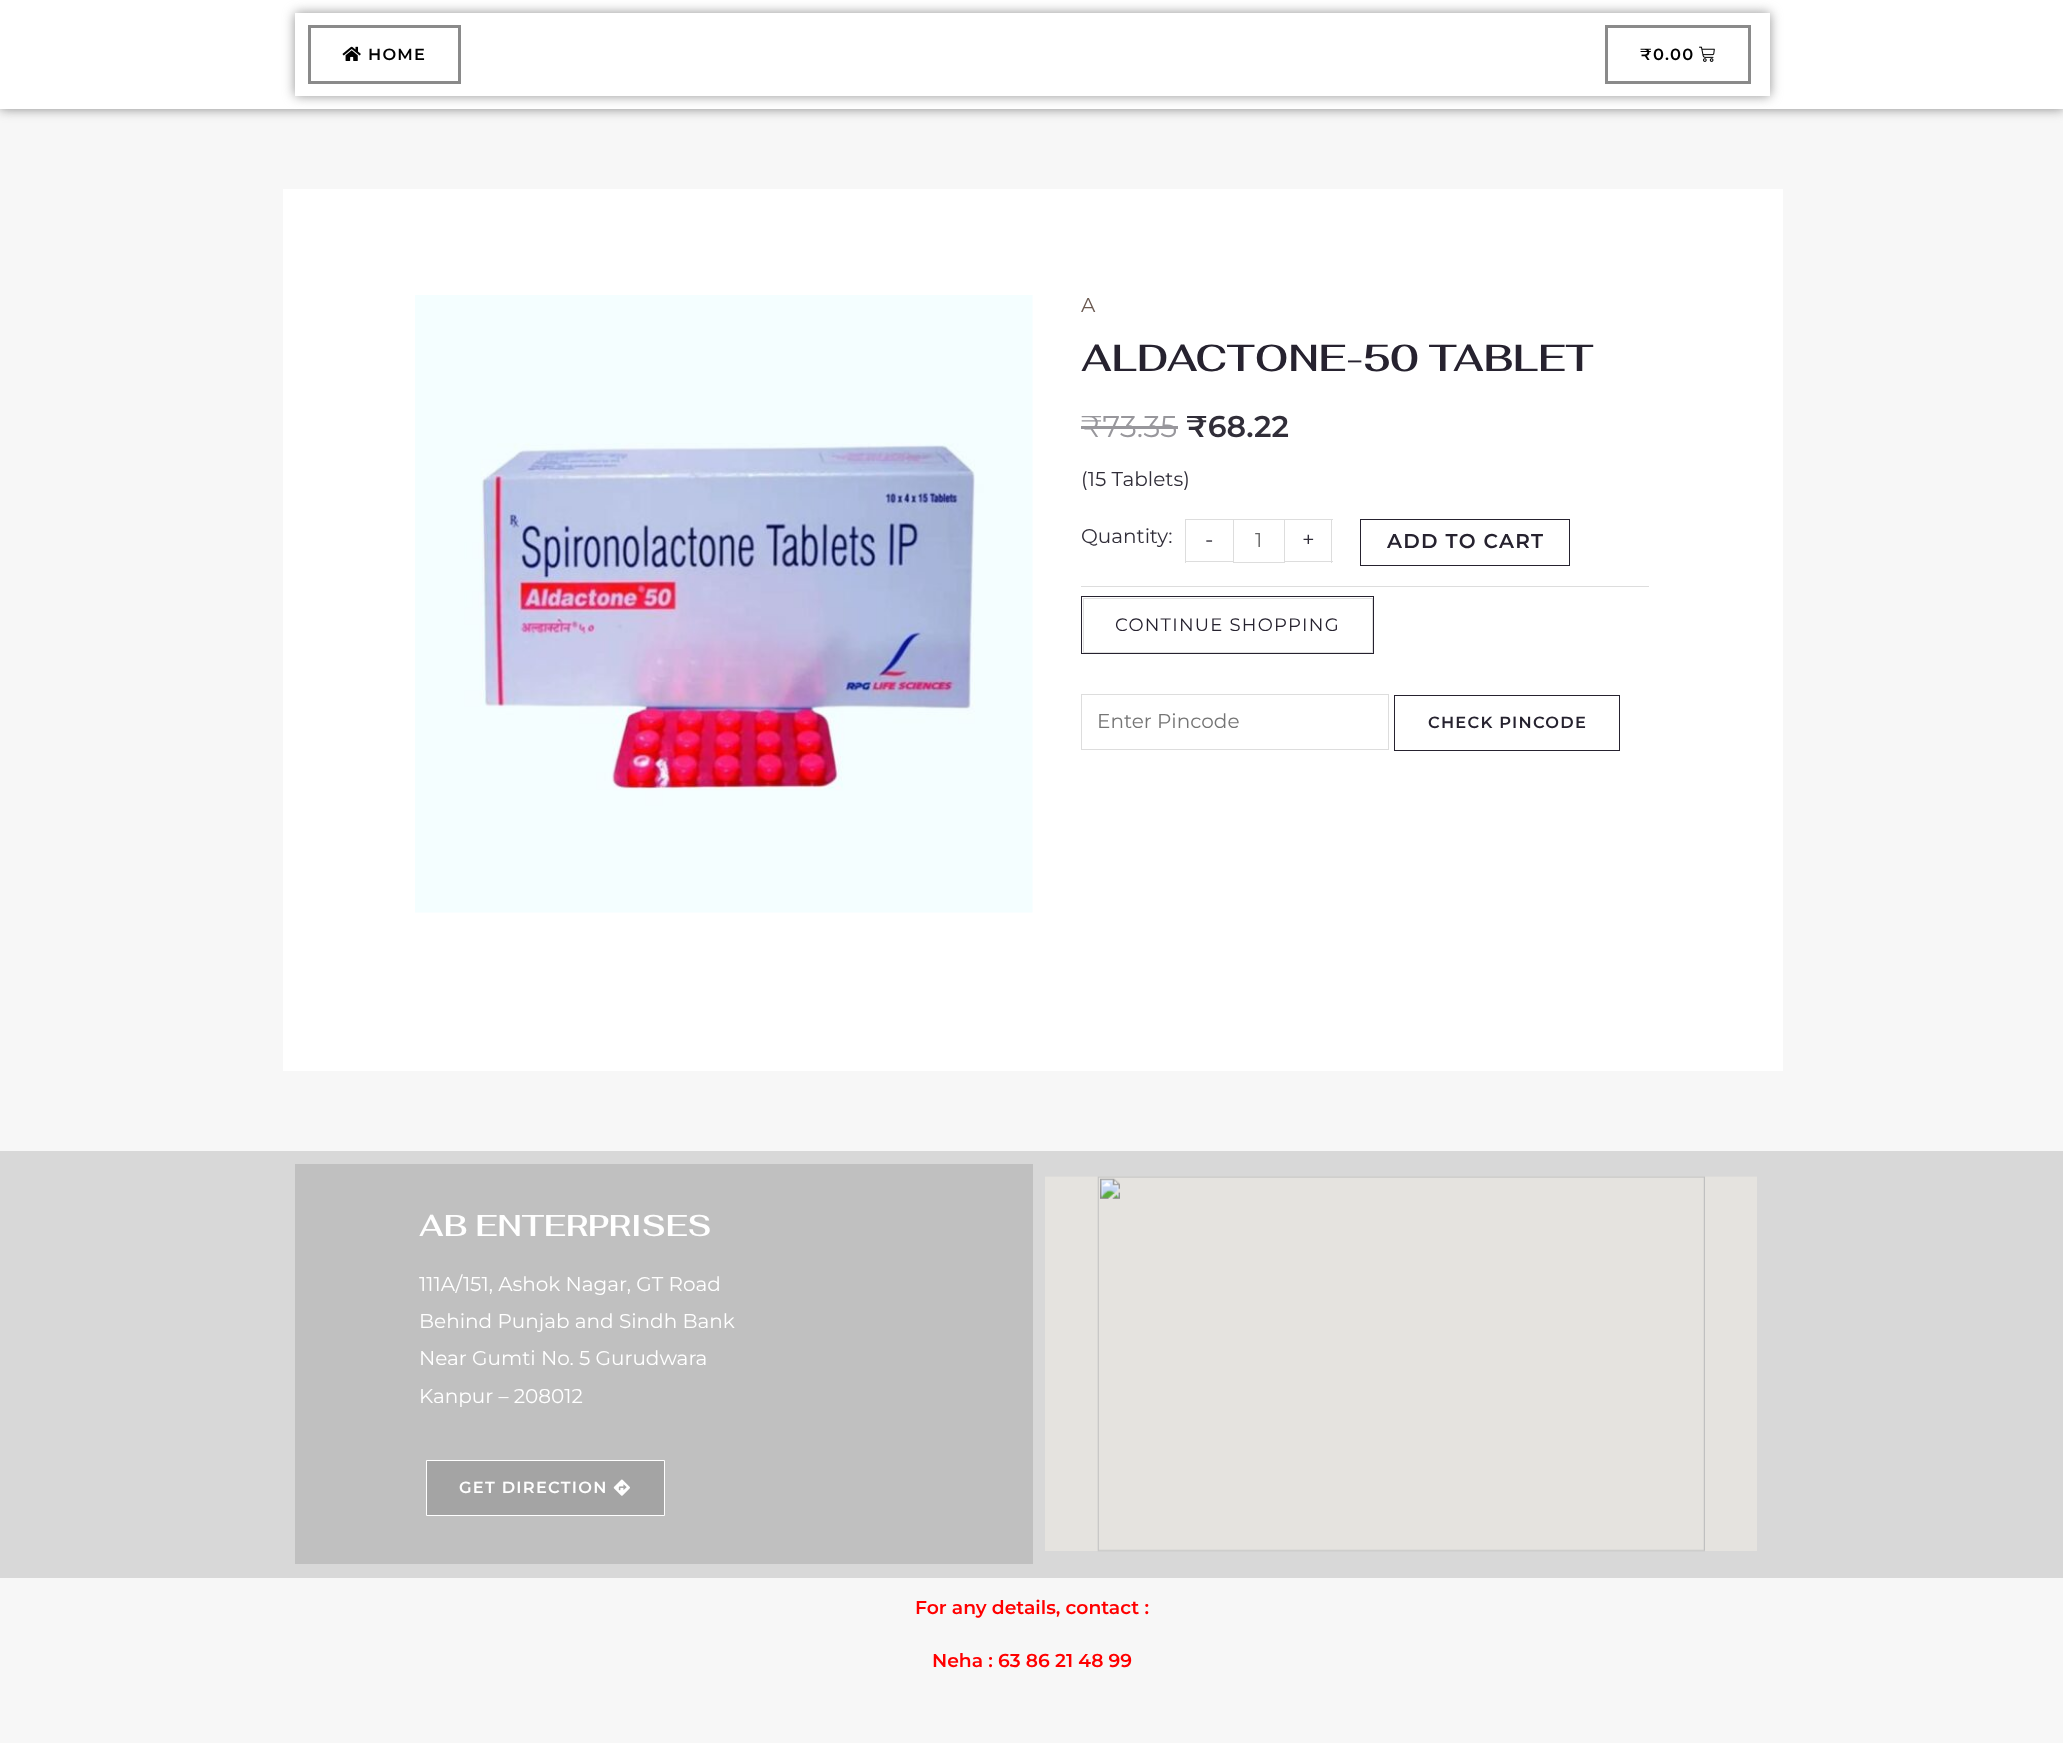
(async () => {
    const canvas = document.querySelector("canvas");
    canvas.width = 2063;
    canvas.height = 1743;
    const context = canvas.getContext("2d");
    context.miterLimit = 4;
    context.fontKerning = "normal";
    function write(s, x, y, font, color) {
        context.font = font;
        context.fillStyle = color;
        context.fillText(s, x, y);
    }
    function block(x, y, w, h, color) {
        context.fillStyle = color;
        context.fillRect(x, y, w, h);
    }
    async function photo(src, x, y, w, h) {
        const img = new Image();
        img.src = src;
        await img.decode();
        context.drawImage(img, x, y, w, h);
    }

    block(0, 0, 2063, 1743, "rgb(247, 247, 247)");
    context.fillStyle = "rgb(136, 136, 136)";
    context.filter = "blur(6px)";
    context.beginPath();
    context.rect(0, 0, 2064, 109);
    context.fill();
    context.filter = "none";
    block(0, 0, 2063, 109, "rgb(255, 255, 255)");
    context.save();
    context.beginPath();
    context.moveTo(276, 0);
    context.lineTo(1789, 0);
    context.lineTo(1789, 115);
    context.lineTo(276, 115);
    context.closePath();
    context.moveTo(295, 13);
    context.lineTo(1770, 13);
    context.lineTo(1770, 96);
    context.lineTo(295, 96);
    context.closePath();
    context.clip("evenodd");
    context.fillStyle = "rgb(145, 145, 145)";
    context.filter = "blur(6px)";
    context.beginPath();
    context.rect(295, 13, 1475, 83);
    context.fill();
    context.filter = "none";
    context.restore();
    context.strokeStyle = "rgb(138, 138, 138)";
    context.lineWidth = 3;
    context.strokeRect(309.5, 26.5, 150, 56);
    await photo("media/1.png", 342, 46, 19, 15);
    context.letterSpacing = "1.25px";
    write("HOME", 368, 60, "600 16.25px Montserrat", "rgb(0, 0, 0)");
    context.strokeRect(1606.5, 26.5, 143, 56);
    write("₹0.00", 1640, 60, "600 16.25px Montserrat", "rgb(0, 0, 0)");
    await photo("media/2.png", 1699, 46, 16, 16);
    block(283, 189, 1500, 882, "rgb(255, 255, 255)");
    await photo("media/3.png", 415, 295, 618, 618);
    context.letterSpacing = "0px";
    write("A", 1081, 312, "20px Montserrat", "rgb(106, 89, 80)");
    write("ALDACTONE-50 TABLET", 1081, 371, "600 37.5px Fahkwang", "rgb(38, 34, 47)");
    write("₹73.35", 1081, 437, "30px Montserrat", "rgb(152, 151, 156)");
    block(1081, 426, 97, 3, "rgb(152, 151, 156)");
    write("₹68.22", 1186, 437, "600 30px Montserrat", "rgb(49, 46, 57)");
    write("(15 Tablets)", 1081, 486, "20px Montserrat", "rgb(49, 46, 57)");
    write("Quantity:", 1081, 543, "20px Montserrat", "rgb(49, 46, 57)");
    block(1185, 519, 48, 1, "rgb(221, 221, 221)");
    block(1185, 561, 48, 1, "rgb(221, 221, 221)");
    block(1185, 519, 1, 44, "rgb(221, 221, 221)");
    write("-", 1205, 547, "22px Montserrat", "rgb(49, 46, 57)");
    context.strokeStyle = "rgb(221, 221, 221)";
    context.lineWidth = 1;
    context.strokeRect(1233.5, 519.5, 51, 43);
    write("1", 1255, 547, "20px Montserrat", "rgb(102, 102, 102)");
    block(1285, 519, 48, 1, "rgb(221, 221, 221)");
    block(1331, 519, 1, 44, "rgb(221, 221, 221)");
    block(1285, 561, 48, 1, "rgb(221, 221, 221)");
    write("+", 1302, 547, "22px Montserrat", "rgb(49, 46, 57)");
    context.strokeStyle = "rgb(38, 34, 47)";
    context.strokeRect(1360.5, 519.5, 209, 46);
    context.letterSpacing = "1.25px";
    write("ADD TO CART", 1387, 548, "600 20px Montserrat", "rgb(38, 34, 47)");
    block(1081, 586, 568, 1, "rgb(221, 221, 221)");
    context.strokeStyle = "rgb(224, 224, 224)";
    context.strokeRect(1083.5, 598.5, 289, 54);
    context.strokeStyle = "rgb(38, 34, 47)";
    context.strokeRect(1081.5, 596.5, 292, 57);
    write("CONTINUE SHOPPING", 1115, 631, "18px Montserrat", "rgb(38, 34, 47)");
    context.strokeStyle = "rgb(221, 221, 221)";
    context.strokeRect(1081.5, 694.5, 307, 55);
    context.letterSpacing = "0px";
    write("Enter Pincode", 1097, 728, "20px Montserrat", "rgb(117, 117, 117)");
    context.strokeStyle = "rgb(38, 34, 47)";
    context.strokeRect(1394.5, 695.5, 225, 55);
    context.letterSpacing = "1.25px";
    write("CHECK PINCODE", 1428, 728, "600 16.25px Montserrat", "rgb(38, 34, 47)");
    block(0, 1151, 2063, 427, "rgb(216, 216, 216)");
    block(295, 1164, 738, 400, "rgb(192, 192, 192)");
    context.letterSpacing = "0px";
    write("AB ENTERPRISES", 419, 1236, "600 30px Fahkwang", "rgb(255, 255, 255)");
    write("111A/151, Ashok Nagar, GT Road", 419, 1291, "20px Montserrat", "rgb(255, 255, 255)");
    write("Behind Punjab and Sindh Bank", 419, 1328, "20px Montserrat", "rgb(255, 255, 255)");
    write("Near Gumti No. 5 Gurudwara", 419, 1365, "20px Montserrat", "rgb(255, 255, 255)");
    write("Kanpur – 208012", 419, 1403, "20px Montserrat", "rgb(255, 255, 255)");
    context.fillStyle = "rgb(164, 164, 164)";
    context.beginPath();
    context.rect(426.5, 1460.5, 238, 55);
    context.fill();
    context.strokeStyle = "rgb(255, 255, 255)";
    context.stroke();
    context.letterSpacing = "1.25px";
    write("GET DIRECTION", 459, 1493, "600 16.25px Montserrat", "rgb(255, 255, 255)");
    await photo("media/4.png", 613, 1479, 17, 17);
    await photo("media/5.png", 1045, 1176, 712, 376);
    context.letterSpacing = "0px";
    write("For any details, contact :", 915, 1614, "600 18.75px Montserrat", "rgb(255, 0, 0)");
    write("Neha : 63 86 21 48 99", 932, 1667, "600 18.75px Montserrat", "rgb(255, 0, 0)");
})();
